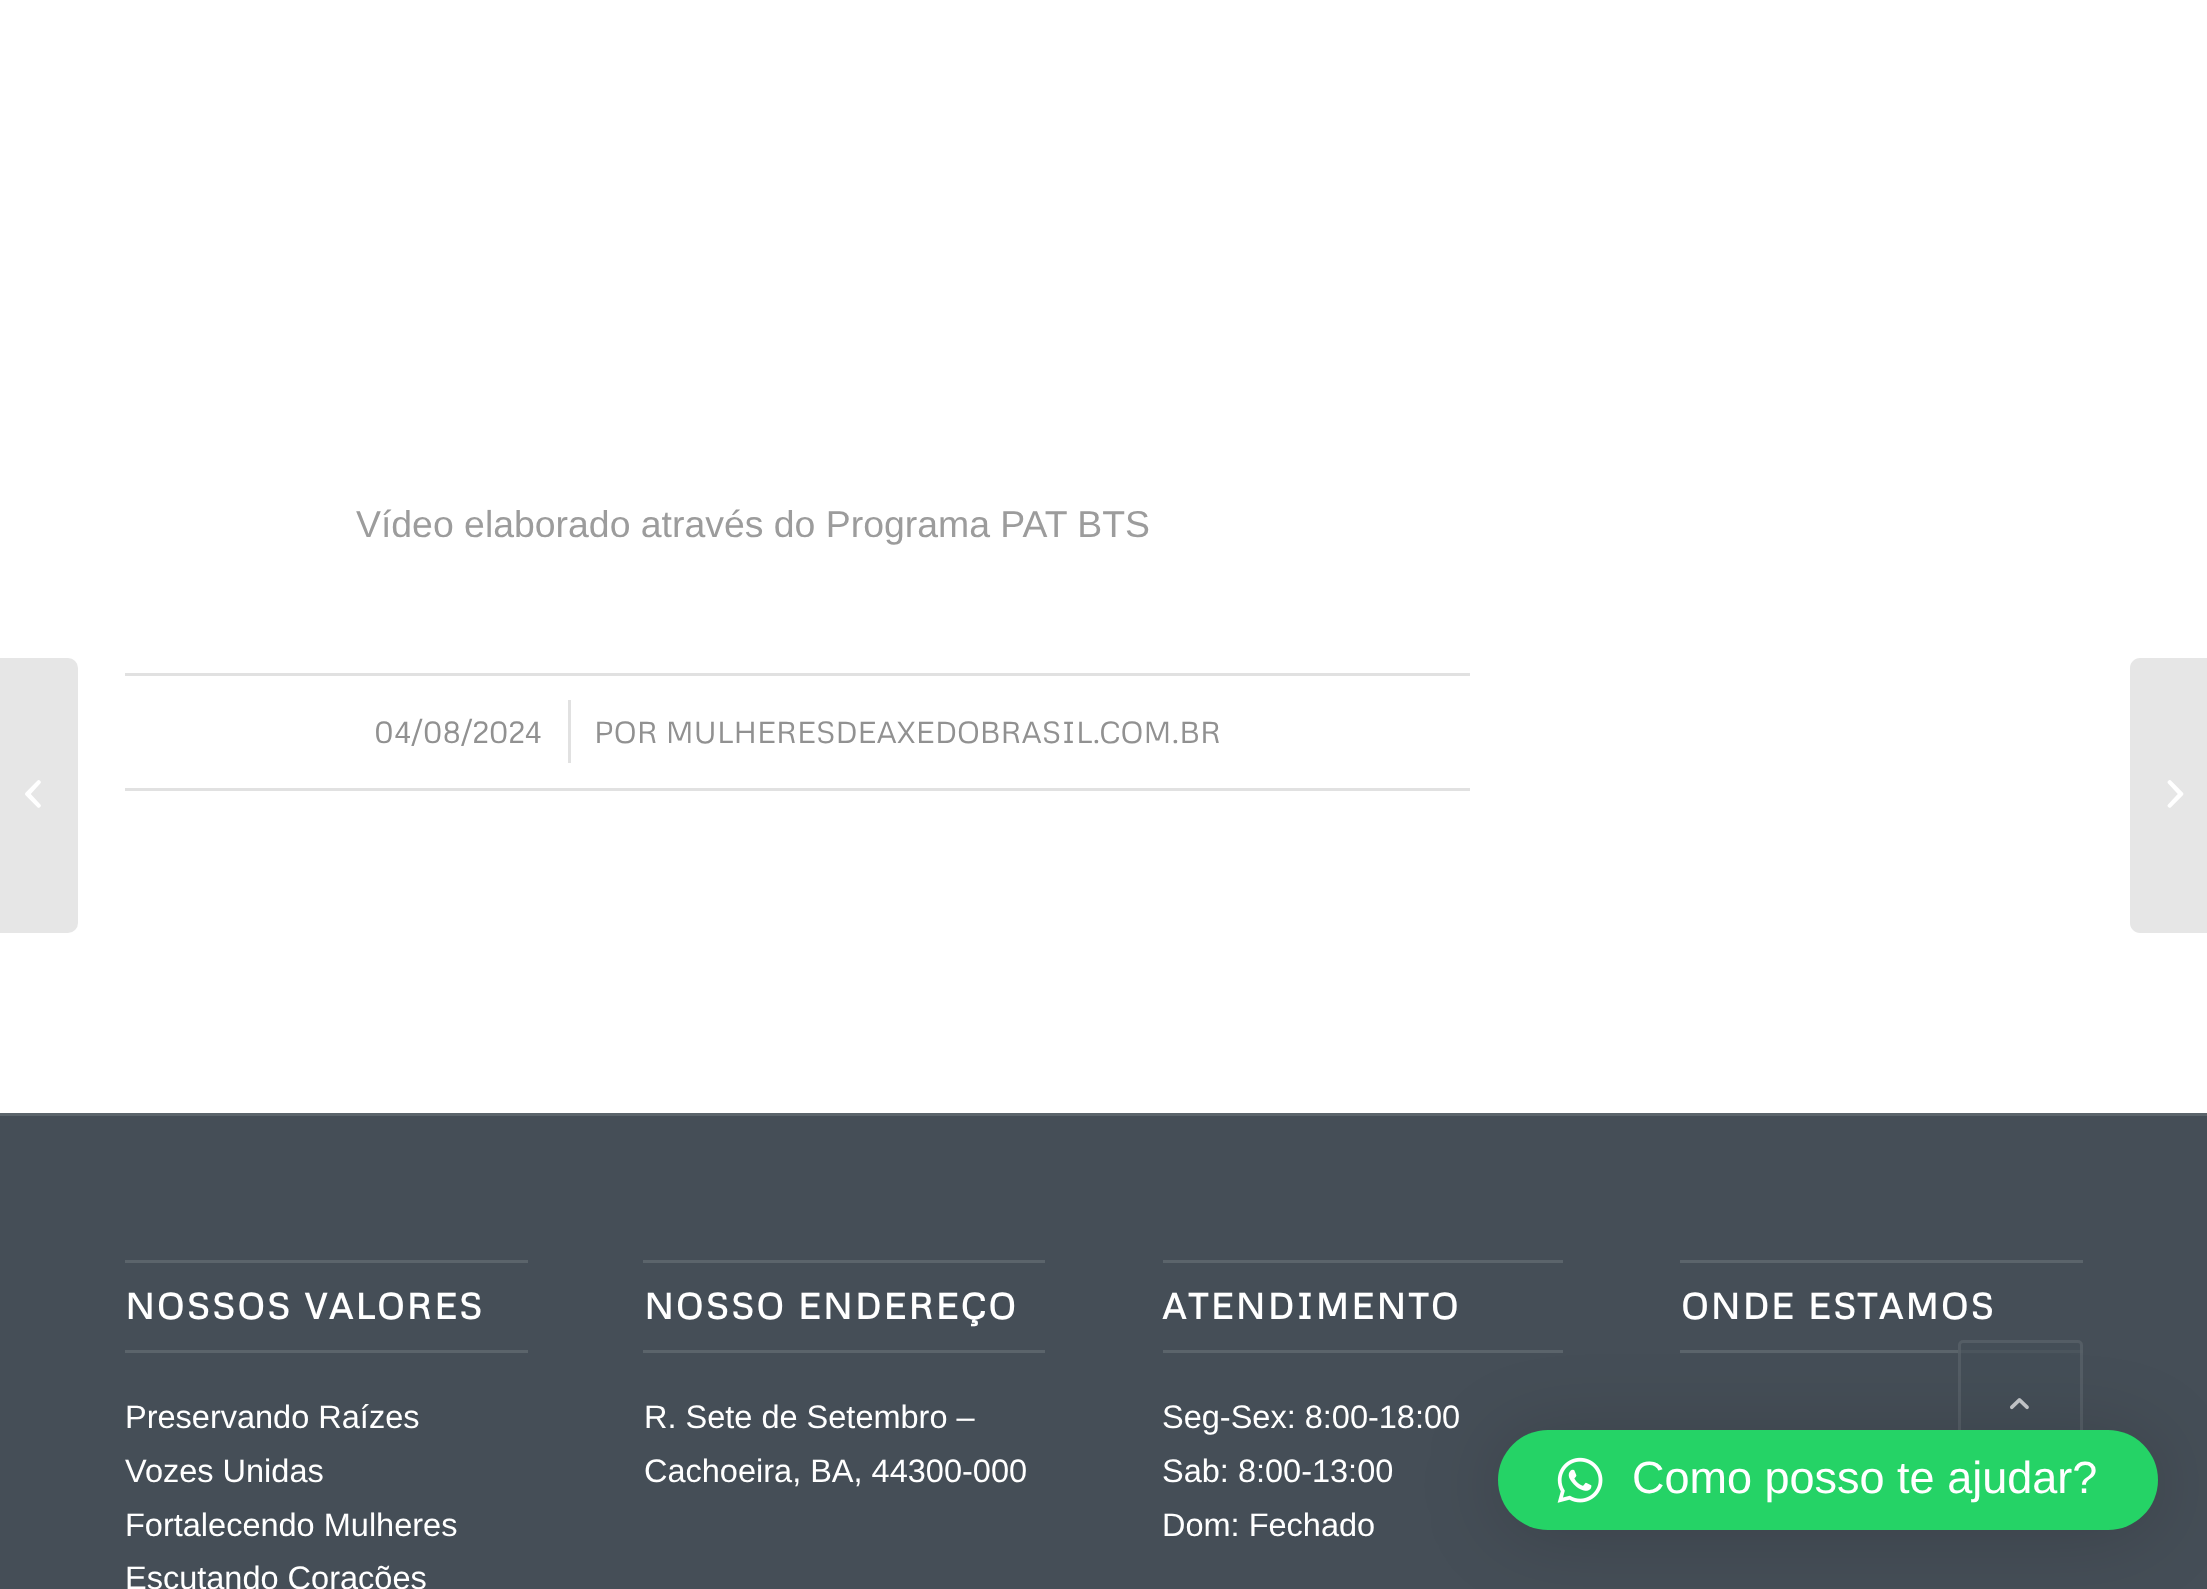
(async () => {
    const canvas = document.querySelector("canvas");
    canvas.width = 2207;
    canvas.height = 1589;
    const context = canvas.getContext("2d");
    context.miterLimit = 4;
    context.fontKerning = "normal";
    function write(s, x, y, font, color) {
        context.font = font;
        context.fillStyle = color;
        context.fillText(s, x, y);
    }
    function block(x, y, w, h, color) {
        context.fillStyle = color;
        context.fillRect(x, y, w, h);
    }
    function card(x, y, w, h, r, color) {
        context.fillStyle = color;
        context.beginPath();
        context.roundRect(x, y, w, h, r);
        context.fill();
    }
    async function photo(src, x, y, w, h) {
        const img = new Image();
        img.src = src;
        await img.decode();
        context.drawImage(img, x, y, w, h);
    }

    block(0, 0, 2207, 1589, "rgb(255, 255, 255)");
    context.fillStyle = "rgb(230, 230, 230)";
    context.beginPath();
    context.roundRect(0, 658, 78, 275, [0, 10, 10, 0]);
    context.fill();
    await photo("media/1.png", 25, 780, 16, 28);
    write("Vídeo elaborado através do Programa PAT BTS", 356, 537, "37.4px Liberation Sans", "rgb(156, 156, 156)");
    block(125, 673, 1345, 3, "rgb(225, 225, 225)");
    block(125, 788, 1345, 3, "rgb(225, 225, 225)");
    write("04/08/2024", 374, 743, "30.25px Metrophobic", "rgb(145, 145, 145)");
    block(568, 700, 3, 63, "rgb(225, 225, 225)");
    write("POR MULHERESDEAXEDOBRASIL.COM.BR", 594, 743, "30.25px Metrophobic", "rgb(145, 145, 145)");
    block(0, 1116, 2207, 473, "rgb(69, 78, 87)");
    block(0, 1113, 2207, 3, "rgb(91, 100, 107)");
    block(125, 1260, 403, 3, "rgb(91, 100, 107)");
    block(125, 1350, 403, 3, "rgb(91, 100, 107)");
    context.letterSpacing = "2.5px";
    write("NOSSOS VALORES", 125, 1319, "bold 35.75px Metrophobic", "rgb(255, 255, 255)");
    context.letterSpacing = "0px";
    write("Preservando Raízes", 125, 1428, "32.5px Liberation Sans", "rgb(255, 255, 255)");
    write("Vozes Unidas", 125, 1482, "32.5px Liberation Sans", "rgb(255, 255, 255)");
    write("Fortalecendo Mulheres", 125, 1536, "32.5px Liberation Sans", "rgb(255, 255, 255)");
    write("Escutando Corações", 125, 1589, "32.5px Liberation Sans", "rgb(255, 255, 255)");
    block(643, 1260, 402, 3, "rgb(91, 100, 107)");
    block(643, 1350, 402, 3, "rgb(91, 100, 107)");
    context.letterSpacing = "2.5px";
    write("NOSSO ENDEREÇO", 644, 1319, "bold 35.75px Metrophobic", "rgb(255, 255, 255)");
    context.letterSpacing = "0px";
    write("R. Sete de Setembro –", 644, 1428, "32.5px Liberation Sans", "rgb(255, 255, 255)");
    write("Cachoeira, BA, 44300-000", 644, 1482, "32.5px Liberation Sans", "rgb(255, 255, 255)");
    block(1163, 1260, 400, 3, "rgb(91, 100, 107)");
    block(1163, 1350, 400, 3, "rgb(91, 100, 107)");
    context.letterSpacing = "2.5px";
    write("ATENDIMENTO", 1162, 1319, "bold 35.75px Metrophobic", "rgb(255, 255, 255)");
    context.letterSpacing = "0px";
    write("Seg-Sex: 8:00-18:00", 1162, 1428, "32.5px Liberation Sans", "rgb(255, 255, 255)");
    write("Sab: 8:00-13:00", 1162, 1482, "32.5px Liberation Sans", "rgb(255, 255, 255)");
    write("Dom: Fechado", 1162, 1536, "32.5px Liberation Sans", "rgb(255, 255, 255)");
    block(1680, 1260, 403, 3, "rgb(91, 100, 107)");
    block(1680, 1350, 403, 3, "rgb(91, 100, 107)");
    context.letterSpacing = "2.5px";
    write("ONDE ESTAMOS", 1681, 1319, "bold 35.75px Metrophobic", "rgb(255, 255, 255)");
    context.fillStyle = "rgb(230, 230, 230)";
    context.beginPath();
    context.moveTo(2140, 658);
    context.lineTo(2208, 658);
    context.lineTo(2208, 933);
    context.lineTo(2140, 933);
    context.bezierCurveTo(2134.5, 933, 2130, 928.5, 2130, 923);
    context.lineTo(2130, 668);
    context.bezierCurveTo(2130, 662.5, 2134.5, 658, 2140, 658);
    context.closePath();
    context.fill();
    await photo("media/2.png", 2167, 780, 17, 28);
    card(1958, 1340, 125, 125, 5, "rgba(69, 78, 87, 0.7)");
    context.beginPath();
    context.roundRect(1959.5, 1341.5, 122, 122, 3.5);
    context.strokeStyle = "rgba(91, 100, 107, 0.7)";
    context.lineWidth = 3;
    context.stroke();
    await photo("media/3.png", 2010, 1398, 19, 12);
    context.fillStyle = "rgba(0, 0, 0, 0.16)";
    context.filter = "blur(40px)";
    context.beginPath();
    context.roundRect(1498, 1435, 660, 100, 50);
    context.fill();
    context.filter = "none";
    card(1498, 1430, 660, 100, 50, "rgb(37, 211, 102)");
    await photo("media/4.png", 1557, 1457, 46, 46);
    context.letterSpacing = "0px";
    write("Como posso te ajudar?", 1632, 1493, "45px Liberation Sans", "rgb(255, 255, 255)");
})();
